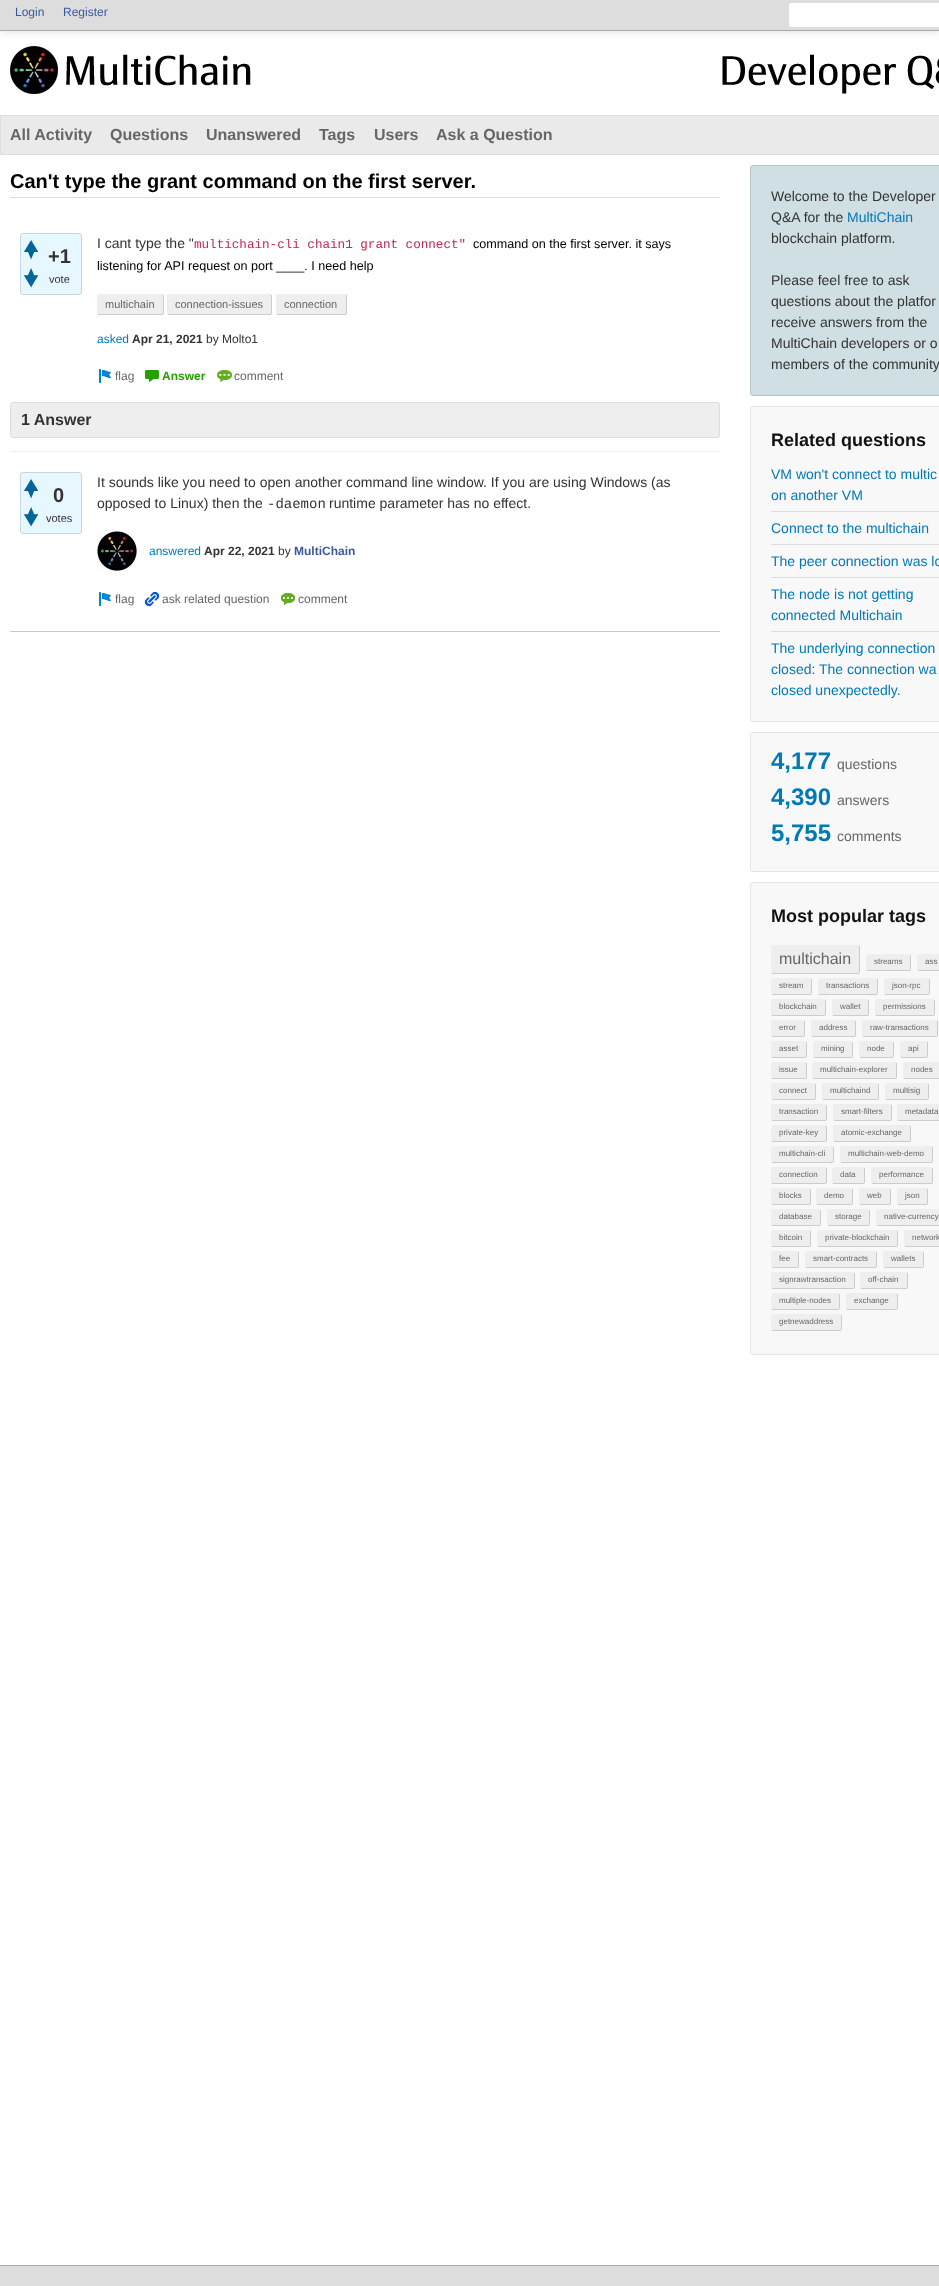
(async () => {
    const canvas = document.querySelector("canvas");
    canvas.width = 939;
    canvas.height = 2286;
    const context = canvas.getContext("2d");
    context.miterLimit = 4;
    context.fontKerning = "normal";
    function write(s, x, y, font, color) {
        context.font = font;
        context.fillStyle = color;
        context.fillText(s, x, y);
    }
    function block(x, y, w, h, color) {
        context.fillStyle = color;
        context.fillRect(x, y, w, h);
    }
    function card(x, y, w, h, r, color) {
        context.fillStyle = color;
        context.beginPath();
        context.roundRect(x, y, w, h, r);
        context.fill();
    }
    async function photo(src, x, y, w, h) {
        const img = new Image();
        img.src = src;
        await img.decode();
        context.drawImage(img, x, y, w, h);
    }

    block(0, 0, 939, 2286, "rgb(255, 255, 255)");
    context.fillStyle = "rgba(0, 0, 0, 0.15)";
    context.filter = "blur(5px)";
    context.beginPath();
    context.rect(0, 0, 939, 31);
    context.fill();
    context.filter = "none";
    block(0, 0, 939, 30, "rgb(221, 221, 221)");
    block(0, 30, 939, 1, "rgb(170, 170, 170)");
    write("Login", 15, 16, "12px Liberation Sans", "rgb(59, 89, 152)");
    write("Register", 63, 16, "12px Liberation Sans", "rgb(59, 89, 152)");
    context.fillStyle = "rgb(255, 255, 255)";
    context.beginPath();
    context.moveTo(791, 2.5);
    context.lineTo(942.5, 2.5);
    context.lineTo(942.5, 27.5);
    context.lineTo(791, 27.5);
    context.bezierCurveTo(789.5, 27.5, 788.5, 26.5, 788.5, 25);
    context.lineTo(788.5, 5);
    context.bezierCurveTo(788.5, 3.5, 789.5, 2.5, 791, 2.5);
    context.closePath();
    context.fill();
    context.strokeStyle = "rgb(221, 221, 221)";
    context.stroke();
    await photo("media/1.png", 10, 46, 241, 48);
    await photo("media/2.png", 722, 54, 217, 40);
    context.fillStyle = "rgb(234, 234, 234)";
    context.beginPath();
    context.rect(0.5, 115.5, 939, 39);
    context.fill();
    context.stroke();
    write("All Activity", 10, 140, "bold 16px Liberation Sans", "rgb(102, 102, 102)");
    write("Questions", 110, 140, "bold 16px Liberation Sans", "rgb(102, 102, 102)");
    write("Unanswered", 206, 140, "bold 16px Liberation Sans", "rgb(102, 102, 102)");
    write("Tags", 319, 140, "bold 16px Liberation Sans", "rgb(102, 102, 102)");
    write("Users", 374, 140, "bold 16px Liberation Sans", "rgb(102, 102, 102)");
    write("Ask a Question", 436, 140, "bold 16px Liberation Sans", "rgb(102, 102, 102)");
    block(10, 197, 710, 1, "rgb(221, 221, 221)");
    write("Can't type the grant command on the first server.", 10, 188, "bold 20px Liberation Sans", "rgb(0, 0, 0)");
    context.fillStyle = "rgb(231, 247, 255)";
    context.beginPath();
    context.roundRect(20.5, 233.5, 61, 61, 2.5);
    context.fill();
    context.strokeStyle = "rgb(197, 214, 223)";
    context.stroke();
    await photo("media/3.png", 24, 240, 15, 20);
    await photo("media/4.png", 23, 268, 16, 20);
    write("+1", 48, 263, "bold 20px Liberation Sans", "rgb(51, 51, 51)");
    write("vote", 49, 283, "11px Liberation Sans", "rgb(51, 51, 51)");
    write("I cant type the \"", 97, 248, "14px Liberation Sans", "rgb(51, 51, 51)");
    write("multichain-cli chain1 grant connect\"", 194, 248, "12.6px Liberation Mono", "rgb(199, 37, 78)");
    write("command on the first server. it says", 473, 248, "12.6px Liberation Sans", "rgb(0, 0, 0)");
    write("listening for API request on port ____. I need help", 97, 270, "12.6px Liberation Sans", "rgb(0, 0, 0)");
    card(97, 294, 67, 21, 2, "rgb(238, 238, 238)");
    block(163, 295, 1, 19, "rgb(204, 204, 204)");
    block(98, 314, 65, 1, "rgb(204, 204, 204)");
    write("multichain", 105, 308, "11px Liberation Sans", "rgb(102, 102, 102)");
    card(167, 294, 105, 21, 2, "rgb(238, 238, 238)");
    block(271, 295, 1, 19, "rgb(204, 204, 204)");
    block(168, 314, 103, 1, "rgb(204, 204, 204)");
    write("connection-issues", 175, 308, "11px Liberation Sans", "rgb(102, 102, 102)");
    card(276, 294, 71, 21, 2, "rgb(238, 238, 238)");
    block(346, 295, 1, 19, "rgb(204, 204, 204)");
    block(277, 314, 69, 1, "rgb(204, 204, 204)");
    write("connection", 284, 308, "11px Liberation Sans", "rgb(102, 102, 102)");
    write("asked", 97, 343, "12px Liberation Sans", "rgb(1, 121, 181)");
    write("Apr 21, 2021", 132, 343, "bold 12px Liberation Sans", "rgb(51, 51, 51)");
    write("by Molto1", 206, 343, "12px Liberation Sans", "rgb(51, 51, 51)");
    await photo("media/5.png", 99, 369, 12, 14);
    write("flag", 115, 380, "12px Liberation Sans", "rgb(102, 102, 102)");
    await photo("media/6.png", 144, 370, 15, 12);
    write("Answer", 162, 380, "bold 12px Liberation Sans", "rgb(40, 158, 0)");
    await photo("media/7.png", 216, 370, 16, 12);
    write("comment", 234, 380, "12px Liberation Sans", "rgb(102, 102, 102)");
    context.fillStyle = "rgb(238, 238, 238)";
    context.beginPath();
    context.roundRect(10.5, 402.5, 709, 35, 2.5);
    context.fill();
    context.strokeStyle = "rgb(221, 221, 221)";
    context.stroke();
    write("1 Answer", 21, 425, "bold 16px Liberation Sans", "rgb(51, 51, 51)");
    block(10, 451, 710, 1, "rgb(238, 238, 238)");
    block(10, 631, 710, 1, "rgb(204, 204, 204)");
    context.fillStyle = "rgb(231, 247, 255)";
    context.beginPath();
    context.roundRect(20.5, 472.5, 61, 61, 2.5);
    context.fill();
    context.strokeStyle = "rgb(197, 214, 223)";
    context.stroke();
    await photo("media/3.png", 24, 479, 15, 20);
    await photo("media/4.png", 23, 507, 16, 20);
    write("0", 53, 502, "bold 20px Liberation Sans", "rgb(51, 51, 51)");
    write("votes", 46, 522, "11px Liberation Sans", "rgb(51, 51, 51)");
    write("It sounds like you need to open another command line window. If you are using Windows (as", 97, 487, "14px Liberation Sans", "rgb(51, 51, 51)");
    write("opposed to Linux) then the", 97, 508, "14px Liberation Sans", "rgb(51, 51, 51)");
    write("-daemon", 267, 508, "14px Liberation Mono", "rgb(51, 51, 51)");
    write("runtime parameter has no effect.", 329, 508, "14px Liberation Sans", "rgb(51, 51, 51)");
    await photo("media/8.png", 97, 531, 40, 40);
    write("answered", 149, 555, "12px Liberation Sans", "rgb(1, 121, 181)");
    write("Apr 22, 2021", 204, 555, "bold 12px Liberation Sans", "rgb(51, 51, 51)");
    write("by", 278, 555, "12px Liberation Sans", "rgb(51, 51, 51)");
    write("MultiChain", 294, 555, "bold 12px Liberation Sans", "rgb(59, 89, 152)");
    await photo("media/5.png", 99, 592, 12, 14);
    write("flag", 115, 603, "12px Liberation Sans", "rgb(102, 102, 102)");
    await photo("media/9.png", 144, 592, 15, 15);
    write("ask related question", 162, 603, "12px Liberation Sans", "rgb(102, 102, 102)");
    await photo("media/10.png", 280, 593, 15, 12);
    write("comment", 298, 603, "12px Liberation Sans", "rgb(102, 102, 102)");
    context.fillStyle = "rgb(208, 223, 228)";
    context.beginPath();
    context.roundRect(750.5, 165.5, 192, 230, 2.5);
    context.fill();
    context.strokeStyle = "rgb(182, 196, 200)";
    context.stroke();
    write("Welcome to the Developer", 771, 201, "14px Liberation Sans", "rgb(51, 51, 51)");
    write("Q&A for the", 771, 222, "14px Liberation Sans", "rgb(51, 51, 51)");
    write("MultiChain", 847, 222, "14px Liberation Sans", "rgb(1, 121, 181)");
    write("blockchain platform.", 771, 243, "14px Liberation Sans", "rgb(51, 51, 51)");
    write("Please feel free to ask", 771, 285, "14px Liberation Sans", "rgb(51, 51, 51)");
    write("questions about the platfor", 771, 306, "14px Liberation Sans", "rgb(51, 51, 51)");
    write("receive answers from the", 771, 327, "14px Liberation Sans", "rgb(51, 51, 51)");
    write("MultiChain developers or o", 771, 348, "14px Liberation Sans", "rgb(51, 51, 51)");
    write("members of the community", 771, 369, "14px Liberation Sans", "rgb(51, 51, 51)");
    context.fillStyle = "rgb(248, 248, 248)";
    context.beginPath();
    context.roundRect(750.5, 406.5, 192, 315, 2.5);
    context.fill();
    context.strokeStyle = "rgb(229, 229, 229)";
    context.stroke();
    write("Related questions", 771, 446, "bold 18px Liberation Sans", "rgb(17, 17, 17)");
    block(771, 511, 168, 1, "rgb(221, 221, 221)");
    write("VM won't connect to multic", 771, 479, "14px Liberation Sans", "rgb(1, 121, 181)");
    write("on another VM", 771, 500, "14px Liberation Sans", "rgb(1, 121, 181)");
    block(771, 544, 168, 1, "rgb(221, 221, 221)");
    write("Connect to the multichain", 771, 533, "14px Liberation Sans", "rgb(1, 121, 181)");
    block(771, 577, 168, 1, "rgb(221, 221, 221)");
    write("The peer connection was lo", 771, 566, "14px Liberation Sans", "rgb(1, 121, 181)");
    block(771, 631, 168, 1, "rgb(221, 221, 221)");
    write("The node is not getting", 771, 599, "14px Liberation Sans", "rgb(1, 121, 181)");
    write("connected Multichain", 771, 620, "14px Liberation Sans", "rgb(1, 121, 181)");
    write("The underlying connection", 771, 653, "14px Liberation Sans", "rgb(1, 121, 181)");
    write("closed: The connection wa", 771, 674, "14px Liberation Sans", "rgb(1, 121, 181)");
    write("closed unexpectedly.", 771, 695, "14px Liberation Sans", "rgb(1, 121, 181)");
    context.fillStyle = "rgb(248, 248, 248)";
    context.beginPath();
    context.roundRect(750.5, 732.5, 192, 139, 2.5);
    context.fill();
    context.stroke();
    write("4,177", 771, 769, "bold 24px Liberation Sans", "rgb(1, 121, 181)");
    write("questions", 837, 769, "14px Liberation Sans", "rgb(102, 102, 102)");
    write("4,390", 771, 805, "bold 24px Liberation Sans", "rgb(1, 121, 181)");
    write("answers", 837, 805, "14px Liberation Sans", "rgb(102, 102, 102)");
    write("5,755", 771, 841, "bold 24px Liberation Sans", "rgb(1, 121, 181)");
    write("comments", 837, 841, "14px Liberation Sans", "rgb(102, 102, 102)");
    context.fillStyle = "rgb(248, 248, 248)";
    context.beginPath();
    context.roundRect(750.5, 882.5, 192, 472, 2.5);
    context.fill();
    context.stroke();
    write("Most popular tags", 771, 922, "bold 18px Liberation Sans", "rgb(17, 17, 17)");
    card(771, 945, 89, 29, 2, "rgb(238, 238, 238)");
    block(859, 946, 1, 27, "rgb(204, 204, 204)");
    block(772, 973, 87, 1, "rgb(204, 204, 204)");
    write("multichain", 779, 964, "16px Liberation Sans", "rgb(102, 102, 102)");
    card(866, 954, 45, 17, 2, "rgb(238, 238, 238)");
    block(910, 955, 1, 15, "rgb(204, 204, 204)");
    block(867, 970, 43, 1, "rgb(204, 204, 204)");
    write("streams", 874, 964, "8px Liberation Sans", "rgb(102, 102, 102)");
    card(917, 954, 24, 17, 2, "rgb(238, 238, 238)");
    block(918, 970, 21, 1, "rgb(204, 204, 204)");
    write("ass", 925, 964, "8px Liberation Sans", "rgb(102, 102, 102)");
    card(771, 978, 41, 17, 2, "rgb(238, 238, 238)");
    block(811, 979, 1, 15, "rgb(204, 204, 204)");
    block(772, 994, 39, 1, "rgb(204, 204, 204)");
    write("stream", 779, 988, "8px Liberation Sans", "rgb(102, 102, 102)");
    card(818, 978, 60, 17, 2, "rgb(238, 238, 238)");
    block(877, 979, 1, 15, "rgb(204, 204, 204)");
    block(819, 994, 58, 1, "rgb(204, 204, 204)");
    write("transactions", 826, 988, "8px Liberation Sans", "rgb(102, 102, 102)");
    card(884, 978, 46, 17, 2, "rgb(238, 238, 238)");
    block(929, 979, 1, 15, "rgb(204, 204, 204)");
    block(885, 994, 44, 1, "rgb(204, 204, 204)");
    write("json-rpc", 892, 988, "8px Liberation Sans", "rgb(102, 102, 102)");
    card(771, 999, 55, 17, 2, "rgb(238, 238, 238)");
    block(825, 1000, 1, 15, "rgb(204, 204, 204)");
    block(772, 1015, 53, 1, "rgb(204, 204, 204)");
    write("blockchain", 779, 1009, "8px Liberation Sans", "rgb(102, 102, 102)");
    card(832, 999, 37, 17, 2, "rgb(238, 238, 238)");
    block(868, 1000, 1, 15, "rgb(204, 204, 204)");
    block(833, 1015, 35, 1, "rgb(204, 204, 204)");
    write("wallet", 840, 1009, "8px Liberation Sans", "rgb(102, 102, 102)");
    card(875, 999, 60, 17, 2, "rgb(238, 238, 238)");
    block(934, 1000, 1, 15, "rgb(204, 204, 204)");
    block(876, 1015, 58, 1, "rgb(204, 204, 204)");
    write("permissions", 883, 1009, "8px Liberation Sans", "rgb(102, 102, 102)");
    card(771, 1020, 34, 17, 2, "rgb(238, 238, 238)");
    block(804, 1021, 1, 15, "rgb(204, 204, 204)");
    block(772, 1036, 32, 1, "rgb(204, 204, 204)");
    write("error", 779, 1030, "8px Liberation Sans", "rgb(102, 102, 102)");
    card(811, 1020, 45, 17, 2, "rgb(238, 238, 238)");
    block(855, 1021, 1, 15, "rgb(204, 204, 204)");
    block(812, 1036, 43, 1, "rgb(204, 204, 204)");
    write("address", 819, 1030, "8px Liberation Sans", "rgb(102, 102, 102)");
    card(862, 1020, 76, 17, 2, "rgb(238, 238, 238)");
    block(937, 1021, 1, 15, "rgb(204, 204, 204)");
    block(863, 1036, 74, 1, "rgb(204, 204, 204)");
    write("raw-transactions", 870, 1030, "8px Liberation Sans", "rgb(102, 102, 102)");
    card(771, 1041, 36, 17, 2, "rgb(238, 238, 238)");
    block(806, 1042, 1, 15, "rgb(204, 204, 204)");
    block(772, 1057, 34, 1, "rgb(204, 204, 204)");
    write("asset", 779, 1051, "8px Liberation Sans", "rgb(102, 102, 102)");
    card(813, 1041, 40, 17, 2, "rgb(238, 238, 238)");
    block(852, 1042, 1, 15, "rgb(204, 204, 204)");
    block(814, 1057, 38, 1, "rgb(204, 204, 204)");
    write("mining", 821, 1051, "8px Liberation Sans", "rgb(102, 102, 102)");
    card(859, 1041, 35, 17, 2, "rgb(238, 238, 238)");
    block(893, 1042, 1, 15, "rgb(204, 204, 204)");
    block(860, 1057, 33, 1, "rgb(204, 204, 204)");
    write("node", 867, 1051, "8px Liberation Sans", "rgb(102, 102, 102)");
    card(900, 1041, 28, 17, 2, "rgb(238, 238, 238)");
    block(927, 1042, 1, 15, "rgb(204, 204, 204)");
    block(901, 1057, 26, 1, "rgb(204, 204, 204)");
    write("api", 908, 1051, "8px Liberation Sans", "rgb(102, 102, 102)");
    card(771, 1062, 36, 17, 2, "rgb(238, 238, 238)");
    block(806, 1063, 1, 15, "rgb(204, 204, 204)");
    block(772, 1078, 34, 1, "rgb(204, 204, 204)");
    write("issue", 779, 1072, "8px Liberation Sans", "rgb(102, 102, 102)");
    card(812, 1062, 85, 17, 2, "rgb(238, 238, 238)");
    block(896, 1063, 1, 15, "rgb(204, 204, 204)");
    block(813, 1078, 83, 1, "rgb(204, 204, 204)");
    write("multichain-explorer", 820, 1072, "8px Liberation Sans", "rgb(102, 102, 102)");
    card(903, 1062, 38, 17, 2, "rgb(238, 238, 238)");
    block(904, 1078, 35, 1, "rgb(204, 204, 204)");
    write("nodes", 911, 1072, "8px Liberation Sans", "rgb(102, 102, 102)");
    card(771, 1083, 45, 17, 2, "rgb(238, 238, 238)");
    block(815, 1084, 1, 15, "rgb(204, 204, 204)");
    block(772, 1099, 43, 1, "rgb(204, 204, 204)");
    write("connect", 779, 1093, "8px Liberation Sans", "rgb(102, 102, 102)");
    card(822, 1083, 57, 17, 2, "rgb(238, 238, 238)");
    block(878, 1084, 1, 15, "rgb(204, 204, 204)");
    block(823, 1099, 55, 1, "rgb(204, 204, 204)");
    write("multichaind", 830, 1093, "8px Liberation Sans", "rgb(102, 102, 102)");
    card(885, 1083, 44, 17, 2, "rgb(238, 238, 238)");
    block(928, 1084, 1, 15, "rgb(204, 204, 204)");
    block(886, 1099, 42, 1, "rgb(204, 204, 204)");
    write("multisig", 893, 1093, "8px Liberation Sans", "rgb(102, 102, 102)");
    card(771, 1104, 56, 17, 2, "rgb(238, 238, 238)");
    block(826, 1105, 1, 15, "rgb(204, 204, 204)");
    block(772, 1120, 54, 1, "rgb(204, 204, 204)");
    write("transaction", 779, 1114, "8px Liberation Sans", "rgb(102, 102, 102)");
    card(833, 1104, 59, 17, 2, "rgb(238, 238, 238)");
    block(891, 1105, 1, 15, "rgb(204, 204, 204)");
    block(834, 1120, 57, 1, "rgb(204, 204, 204)");
    write("smart-filters", 841, 1114, "8px Liberation Sans", "rgb(102, 102, 102)");
    card(897, 1104, 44, 17, 2, "rgb(238, 238, 238)");
    block(898, 1120, 41, 1, "rgb(204, 204, 204)");
    write("metadata", 905, 1114, "8px Liberation Sans", "rgb(102, 102, 102)");
    card(771, 1125, 56, 17, 2, "rgb(238, 238, 238)");
    block(826, 1126, 1, 15, "rgb(204, 204, 204)");
    block(772, 1141, 54, 1, "rgb(204, 204, 204)");
    write("private-key", 779, 1135, "8px Liberation Sans", "rgb(102, 102, 102)");
    card(833, 1125, 78, 17, 2, "rgb(238, 238, 238)");
    block(910, 1126, 1, 15, "rgb(204, 204, 204)");
    block(834, 1141, 76, 1, "rgb(204, 204, 204)");
    write("atomic-exchange", 841, 1135, "8px Liberation Sans", "rgb(102, 102, 102)");
    card(771, 1146, 63, 17, 2, "rgb(238, 238, 238)");
    block(833, 1147, 1, 15, "rgb(204, 204, 204)");
    block(772, 1162, 61, 1, "rgb(204, 204, 204)");
    write("multichain-cli", 779, 1156, "8px Liberation Sans", "rgb(102, 102, 102)");
    card(840, 1146, 93, 17, 2, "rgb(238, 238, 238)");
    block(932, 1147, 1, 15, "rgb(204, 204, 204)");
    block(841, 1162, 91, 1, "rgb(204, 204, 204)");
    write("multichain-web-demo", 848, 1156, "8px Liberation Sans", "rgb(102, 102, 102)");
    card(771, 1167, 56, 17, 2, "rgb(238, 238, 238)");
    block(826, 1168, 1, 15, "rgb(204, 204, 204)");
    block(772, 1183, 54, 1, "rgb(204, 204, 204)");
    write("connection", 779, 1177, "8px Liberation Sans", "rgb(102, 102, 102)");
    card(832, 1167, 33, 17, 2, "rgb(238, 238, 238)");
    block(864, 1168, 1, 15, "rgb(204, 204, 204)");
    block(833, 1183, 31, 1, "rgb(204, 204, 204)");
    write("data", 840, 1177, "8px Liberation Sans", "rgb(102, 102, 102)");
    card(871, 1167, 62, 17, 2, "rgb(238, 238, 238)");
    block(932, 1168, 1, 15, "rgb(204, 204, 204)");
    block(872, 1183, 60, 1, "rgb(204, 204, 204)");
    write("performance", 879, 1177, "8px Liberation Sans", "rgb(102, 102, 102)");
    card(771, 1188, 40, 17, 2, "rgb(238, 238, 238)");
    block(810, 1189, 1, 15, "rgb(204, 204, 204)");
    block(772, 1204, 38, 1, "rgb(204, 204, 204)");
    write("blocks", 779, 1198, "8px Liberation Sans", "rgb(102, 102, 102)");
    card(816, 1188, 37, 17, 2, "rgb(238, 238, 238)");
    block(852, 1189, 1, 15, "rgb(204, 204, 204)");
    block(817, 1204, 35, 1, "rgb(204, 204, 204)");
    write("demo", 824, 1198, "8px Liberation Sans", "rgb(102, 102, 102)");
    card(859, 1188, 32, 17, 2, "rgb(238, 238, 238)");
    block(890, 1189, 1, 15, "rgb(204, 204, 204)");
    block(860, 1204, 30, 1, "rgb(204, 204, 204)");
    write("web", 867, 1198, "8px Liberation Sans", "rgb(102, 102, 102)");
    card(897, 1188, 31, 17, 2, "rgb(238, 238, 238)");
    block(927, 1189, 1, 15, "rgb(204, 204, 204)");
    block(898, 1204, 29, 1, "rgb(204, 204, 204)");
    write("json", 905, 1198, "8px Liberation Sans", "rgb(102, 102, 102)");
    card(771, 1209, 50, 17, 2, "rgb(238, 238, 238)");
    block(820, 1210, 1, 15, "rgb(204, 204, 204)");
    block(772, 1225, 48, 1, "rgb(204, 204, 204)");
    write("database", 779, 1219, "8px Liberation Sans", "rgb(102, 102, 102)");
    card(827, 1209, 43, 17, 2, "rgb(238, 238, 238)");
    block(869, 1210, 1, 15, "rgb(204, 204, 204)");
    block(828, 1225, 41, 1, "rgb(204, 204, 204)");
    write("storage", 835, 1219, "8px Liberation Sans", "rgb(102, 102, 102)");
    card(876, 1209, 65, 17, 2, "rgb(238, 238, 238)");
    block(877, 1225, 62, 1, "rgb(204, 204, 204)");
    write("native-currency", 884, 1219, "8px Liberation Sans", "rgb(102, 102, 102)");
    card(771, 1230, 40, 17, 2, "rgb(238, 238, 238)");
    block(810, 1231, 1, 15, "rgb(204, 204, 204)");
    block(772, 1246, 38, 1, "rgb(204, 204, 204)");
    write("bitcoin", 779, 1240, "8px Liberation Sans", "rgb(102, 102, 102)");
    card(817, 1230, 81, 17, 2, "rgb(238, 238, 238)");
    block(897, 1231, 1, 15, "rgb(204, 204, 204)");
    block(818, 1246, 79, 1, "rgb(204, 204, 204)");
    write("private-blockchain", 825, 1240, "8px Liberation Sans", "rgb(102, 102, 102)");
    card(904, 1230, 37, 17, 2, "rgb(238, 238, 238)");
    block(905, 1246, 34, 1, "rgb(204, 204, 204)");
    write("network", 912, 1240, "8px Liberation Sans", "rgb(102, 102, 102)");
    card(771, 1251, 28, 17, 2, "rgb(238, 238, 238)");
    block(798, 1252, 1, 15, "rgb(204, 204, 204)");
    block(772, 1267, 26, 1, "rgb(204, 204, 204)");
    write("fee", 779, 1261, "8px Liberation Sans", "rgb(102, 102, 102)");
    card(805, 1251, 72, 17, 2, "rgb(238, 238, 238)");
    block(876, 1252, 1, 15, "rgb(204, 204, 204)");
    block(806, 1267, 70, 1, "rgb(204, 204, 204)");
    write("smart-contracts", 813, 1261, "8px Liberation Sans", "rgb(102, 102, 102)");
    card(883, 1251, 41, 17, 2, "rgb(238, 238, 238)");
    block(923, 1252, 1, 15, "rgb(204, 204, 204)");
    block(884, 1267, 39, 1, "rgb(204, 204, 204)");
    write("wallets", 891, 1261, "8px Liberation Sans", "rgb(102, 102, 102)");
    card(771, 1272, 84, 17, 2, "rgb(238, 238, 238)");
    block(854, 1273, 1, 15, "rgb(204, 204, 204)");
    block(772, 1288, 82, 1, "rgb(204, 204, 204)");
    write("signrawtransaction", 779, 1282, "8px Liberation Sans", "rgb(102, 102, 102)");
    card(860, 1272, 48, 17, 2, "rgb(238, 238, 238)");
    block(907, 1273, 1, 15, "rgb(204, 204, 204)");
    block(861, 1288, 46, 1, "rgb(204, 204, 204)");
    write("off-chain", 868, 1282, "8px Liberation Sans", "rgb(102, 102, 102)");
    card(771, 1293, 69, 17, 2, "rgb(238, 238, 238)");
    block(839, 1294, 1, 15, "rgb(204, 204, 204)");
    block(772, 1309, 67, 1, "rgb(204, 204, 204)");
    write("multiple-nodes", 779, 1303, "8px Liberation Sans", "rgb(102, 102, 102)");
    card(846, 1293, 52, 17, 2, "rgb(238, 238, 238)");
    block(897, 1294, 1, 15, "rgb(204, 204, 204)");
    block(847, 1309, 50, 1, "rgb(204, 204, 204)");
    write("exchange", 854, 1303, "8px Liberation Sans", "rgb(102, 102, 102)");
    card(771, 1314, 71, 17, 2, "rgb(238, 238, 238)");
    block(841, 1315, 1, 15, "rgb(204, 204, 204)");
    block(772, 1330, 69, 1, "rgb(204, 204, 204)");
    write("getnewaddress", 779, 1324, "8px Liberation Sans", "rgb(102, 102, 102)");
    block(0, 2266, 939, 20, "rgb(221, 221, 221)");
    block(0, 2265, 939, 1, "rgb(170, 170, 170)");
})();
